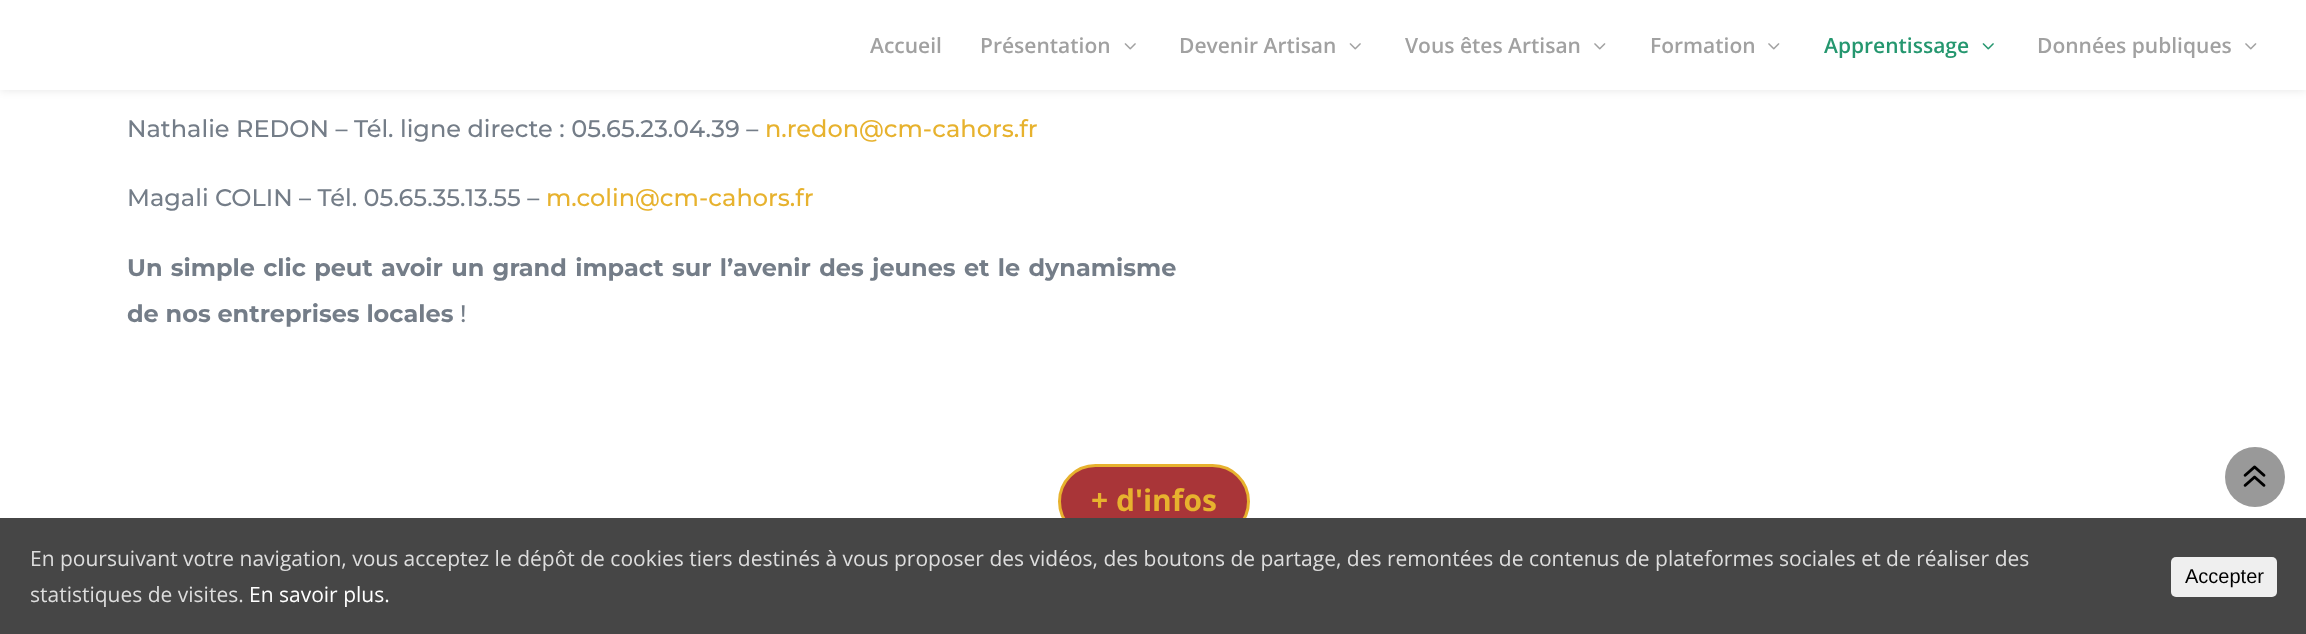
(async () => {
    const canvas = document.querySelector("canvas");
    canvas.width = 2306;
    canvas.height = 634;
    const context = canvas.getContext("2d");
    context.miterLimit = 4;
    context.fontKerning = "normal";
    function write(s, x, y, font, color) {
        context.font = font;
        context.fillStyle = color;
        context.fillText(s, x, y);
    }
    function block(x, y, w, h, color) {
        context.fillStyle = color;
        context.fillRect(x, y, w, h);
    }
    function card(x, y, w, h, r, color) {
        context.fillStyle = color;
        context.beginPath();
        context.roundRect(x, y, w, h, r);
        context.fill();
    }
    async function photo(src, x, y, w, h) {
        const img = new Image();
        img.src = src;
        await img.decode();
        context.drawImage(img, x, y, w, h);
    }

    block(0, 0, 2306, 634, "rgb(255, 255, 255)");
    context.fillStyle = "rgba(0, 0, 0, 0.1)";
    context.filter = "blur(5px)";
    context.beginPath();
    context.rect(0, 0, 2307, 90);
    context.fill();
    context.filter = "none";
    block(0, 0, 2306, 90, "rgb(255, 255, 255)");
    write("Accueil", 870, 53, "600 21px Open Sans", "rgb(161, 161, 161)");
    write("Présentation", 980, 53, "600 21px Open Sans", "rgb(161, 161, 161)");
    await photo("media/1.png", 1124, 43, 12, 7);
    write("Devenir Artisan", 1179, 53, "600 21px Open Sans", "rgb(161, 161, 161)");
    await photo("media/1.png", 1349, 43, 12, 7);
    write("Vous êtes Artisan", 1405, 53, "600 21px Open Sans", "rgb(161, 161, 161)");
    await photo("media/2.png", 1594, 43, 12, 7);
    write("Formation", 1650, 53, "600 21px Open Sans", "rgb(161, 161, 161)");
    await photo("media/2.png", 1768, 43, 12, 7);
    write("Apprentissage", 1824, 53, "600 21px Open Sans", "rgb(37, 151, 111)");
    await photo("media/3.png", 1982, 43, 12, 7);
    write("Données publiques", 2037, 53, "600 21px Open Sans", "rgb(161, 161, 161)");
    await photo("media/2.png", 2245, 43, 12, 7);
    write("Nathalie REDON – Tél. ligne directe : 05.65.23.04.39 –", 127, 137, "500 24px Montserrat", "rgb(116, 125, 136)");
    write("n.redon@cm-cahors.fr", 765, 137, "500 24px Montserrat", "rgb(231, 178, 46)");
    write("Magali COLIN – Tél. 05.65.35.13.55 –", 127, 206, "500 24px Montserrat", "rgb(116, 125, 136)");
    write("m.colin@cm-cahors.fr", 546, 206, "500 24px Montserrat", "rgb(231, 178, 46)");
    context.wordSpacing = "1.5px";
    write("Un simple clic peut avoir un grand impact sur l’avenir des jeunes et le dynamisme", 127, 276, "bold 24px Montserrat", "rgb(116, 125, 136)");
    context.wordSpacing = "0px";
    write("de nos entreprises locales", 127, 322, "bold 24px Montserrat", "rgb(116, 125, 136)");
    write("!", 460, 322, "500 24px Montserrat", "rgb(116, 125, 136)");
    context.fillStyle = "rgb(169, 53, 56)";
    context.beginPath();
    context.roundRect(1059.5, 465.5, 189, 72, 36);
    context.fill();
    context.strokeStyle = "rgb(231, 178, 46)";
    context.lineWidth = 3;
    context.stroke();
    write("+ d'infos", 1091, 511, "bold 30px Open Sans", "rgb(231, 178, 46)");
    context.fillStyle = "rgb(153, 153, 153)";
    context.beginPath();
    context.arc(2255, 477, 30, 0, Math.PI * 2);
    context.fill();
    await photo("media/4.png", 2243, 465, 23, 22);
    block(0, 518, 2306, 116, "rgb(70, 70, 70)");
    write("En poursuivant votre navigation, vous acceptez le dépôt de cookies tiers destinés à vous proposer des vidéos, des boutons de partage, des remontées de contenus de plateformes sociales et de réaliser des", 30, 566, "21px Open Sans", "rgb(221, 221, 221)");
    write("statistiques de visites.", 30, 602, "21px Open Sans", "rgb(221, 221, 221)");
    write("En savoir plus.", 249, 602, "21px Open Sans", "rgb(255, 255, 255)");
    card(2171, 557, 106, 40, 5, "rgb(239, 239, 239)");
    write("Accepter", 2185, 583, "20px Liberation Sans", "rgb(0, 0, 0)");
})();
